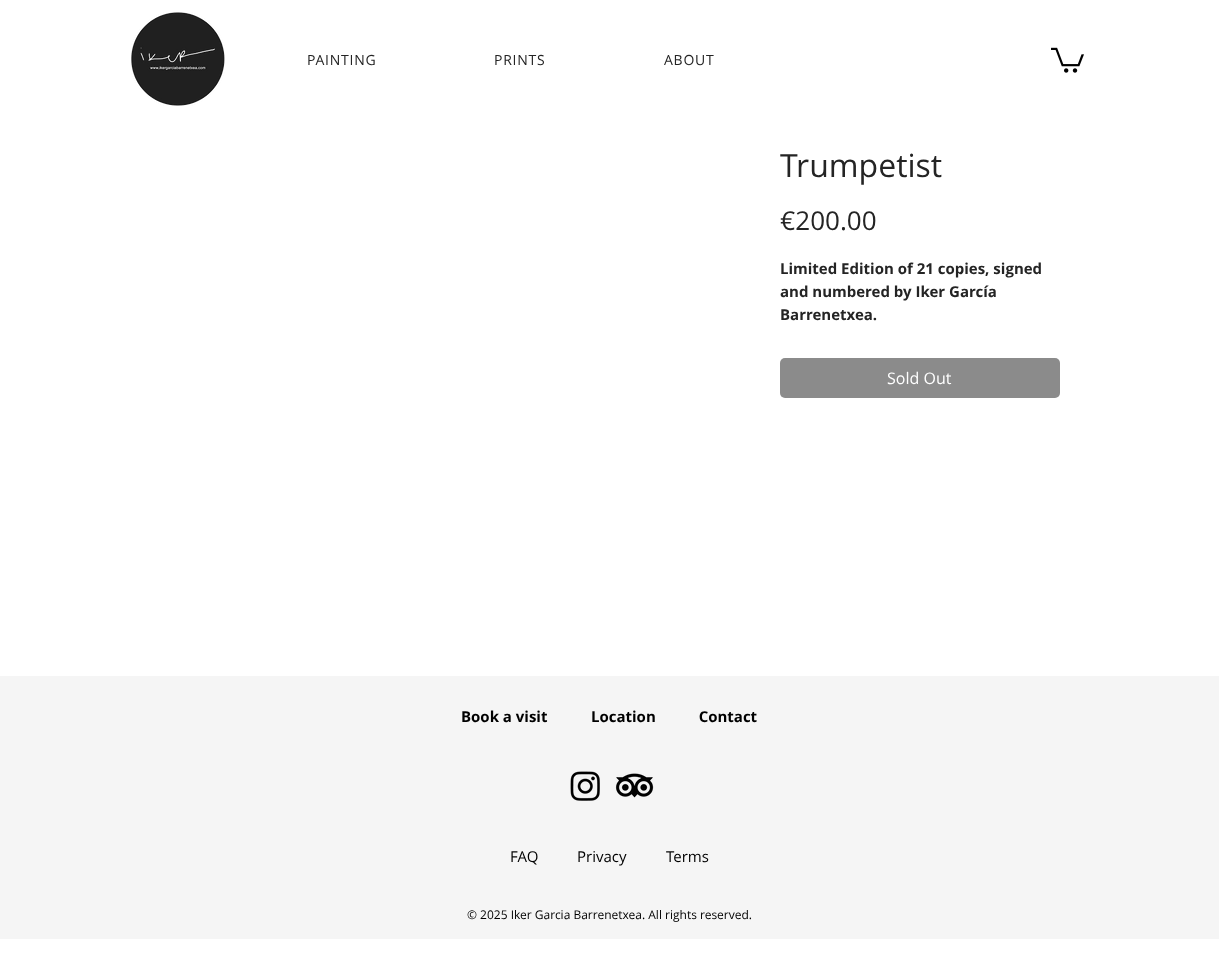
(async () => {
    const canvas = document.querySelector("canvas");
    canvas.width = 1219;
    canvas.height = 955;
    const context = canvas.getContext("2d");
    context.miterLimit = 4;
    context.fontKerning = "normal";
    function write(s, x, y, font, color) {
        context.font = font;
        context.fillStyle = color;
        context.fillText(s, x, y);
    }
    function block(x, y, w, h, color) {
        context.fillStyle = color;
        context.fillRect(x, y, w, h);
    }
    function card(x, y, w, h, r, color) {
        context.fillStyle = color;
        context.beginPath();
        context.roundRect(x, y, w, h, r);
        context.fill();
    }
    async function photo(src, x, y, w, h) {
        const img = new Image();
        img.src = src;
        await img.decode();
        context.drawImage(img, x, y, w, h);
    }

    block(0, 0, 1219, 955, "rgb(255, 255, 255)");
    await photo("media/1.png", 131, 12, 94, 94);
    context.letterSpacing = "0.75px";
    write("PAINTING", 307, 65, "14px Open Sans", "rgb(36, 36, 36)");
    write("PRINTS", 494, 65, "14px Open Sans", "rgb(36, 36, 36)");
    write("ABOUT", 664, 65, "14px Open Sans", "rgb(36, 36, 36)");
    await photo("media/2.png", 1051, 47, 33, 26);
    context.letterSpacing = "0px";
    write("Trumpetist", 780, 177, "32px Open Sans", "rgb(36, 36, 36)");
    write("€200.00", 780, 230, "26px Open Sans", "rgb(36, 36, 36)");
    write("Limited Edition of 21 copies, signed", 780, 274, "bold 15px Open Sans", "rgb(36, 36, 36)");
    write("and numbered by Iker García", 780, 297, "bold 15px Open Sans", "rgb(36, 36, 36)");
    write("Barrenetxea.", 780, 320, "bold 15px Open Sans", "rgb(36, 36, 36)");
    card(780, 358, 280, 40, 5, "rgb(139, 139, 139)");
    write("Sold Out", 887, 384, "16px Open Sans", "rgb(255, 255, 255)");
    block(0, 676, 1219, 263, "rgb(245, 245, 245)");
    write("Book a visit", 461, 722, "bold 15px Open Sans", "rgb(0, 0, 0)");
    write("Location           Contact", 591, 722, "bold 15px Open Sans", "rgb(0, 0, 0)");
    await photo("media/3.png", 570, 771, 30, 30);
    await photo("media/4.png", 615, 773, 39, 25);
    write("FAQ", 510, 862, "15px Open Sans", "rgb(0, 0, 0)");
    write("Privacy", 577, 862, "15px Open Sans", "rgb(0, 0, 0)");
    write("Terms", 666, 862, "15px Open Sans", "rgb(0, 0, 0)");
    write("© 2025 Iker Garcia Barrenetxea. All rights reserved.", 467, 919, "12px Open Sans", "rgb(0, 0, 0)");
})();
